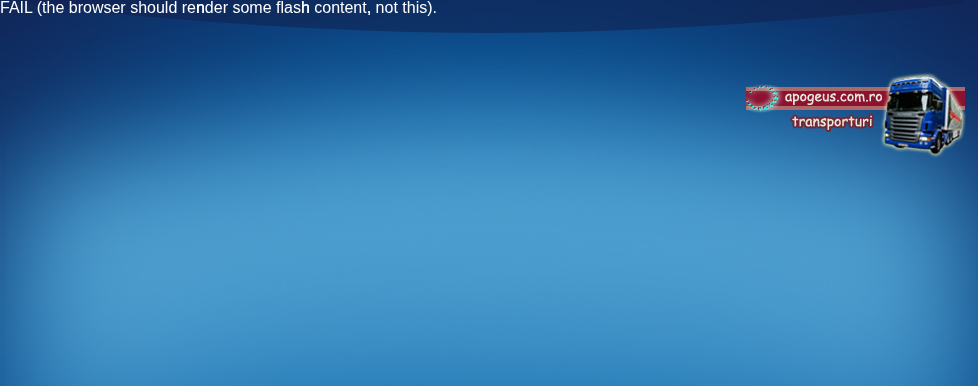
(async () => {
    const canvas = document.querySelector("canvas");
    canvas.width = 978;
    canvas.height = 386;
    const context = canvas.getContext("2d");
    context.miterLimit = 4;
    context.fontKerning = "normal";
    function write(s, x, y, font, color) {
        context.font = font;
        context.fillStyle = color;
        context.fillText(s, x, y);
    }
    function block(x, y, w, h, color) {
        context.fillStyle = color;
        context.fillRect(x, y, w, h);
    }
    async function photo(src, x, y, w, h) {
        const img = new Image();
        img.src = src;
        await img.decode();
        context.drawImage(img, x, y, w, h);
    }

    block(0, 0, 978, 386, "rgb(255, 255, 255)");
    await photo("media/1.png", 0, 0, 978, 386);
    await photo("media/2.png", 5, 0, 971, 386);
    await photo("media/3.png", 1, 1, 435, 15);
    write("n", 196, 13, "16px Liberation Sans", "rgb(255, 255, 255)");
    write("h", 301, 13, "16px Liberation Sans", "rgb(255, 255, 255)");
    write(",", 367, 13, "16px Liberation Sans", "rgb(255, 255, 255)");
    await photo("media/4.png", 746, 72, 220, 86);
})();
